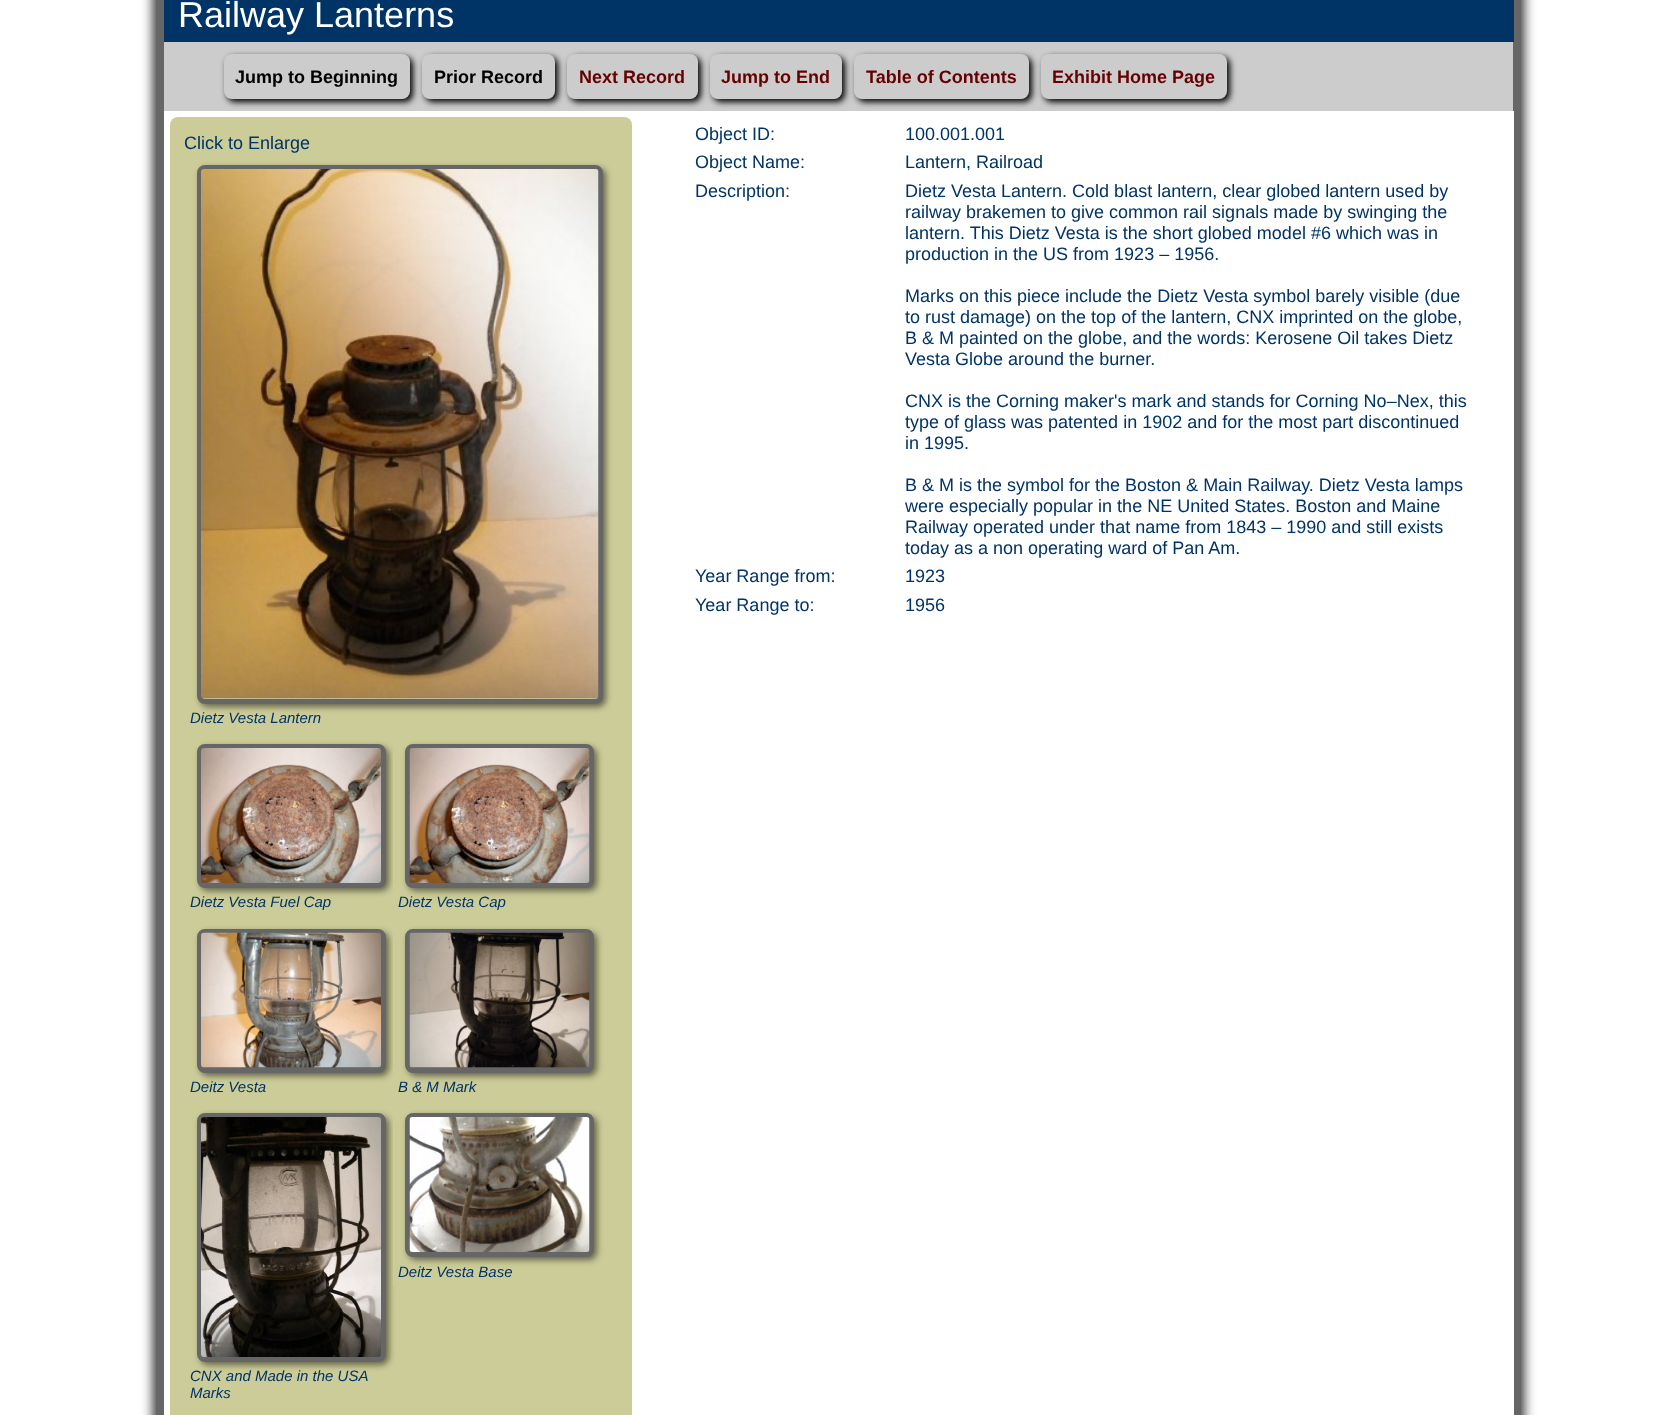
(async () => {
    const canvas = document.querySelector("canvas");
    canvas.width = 1675;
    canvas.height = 1415;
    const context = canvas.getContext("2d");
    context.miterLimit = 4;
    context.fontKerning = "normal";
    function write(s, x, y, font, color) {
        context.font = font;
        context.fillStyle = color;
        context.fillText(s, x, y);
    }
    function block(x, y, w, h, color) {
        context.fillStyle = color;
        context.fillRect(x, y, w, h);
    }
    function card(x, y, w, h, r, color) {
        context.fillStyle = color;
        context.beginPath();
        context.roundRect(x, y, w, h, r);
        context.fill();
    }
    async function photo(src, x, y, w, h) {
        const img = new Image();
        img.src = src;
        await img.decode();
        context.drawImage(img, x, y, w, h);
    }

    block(0, 0, 1675, 1415, "rgb(255, 255, 255)");
    context.fillStyle = "rgb(51, 51, 51)";
    context.filter = "blur(6px)";
    context.beginPath();
    context.roundRect(153, -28, 1371, 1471, 18);
    context.fill();
    context.filter = "none";
    block(164, 42, 1349, 69, "rgb(204, 204, 204)");
    context.strokeStyle = "rgb(102, 102, 102)";
    context.lineWidth = 8;
    context.strokeRect(160, -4, 1357, 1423);
    block(164, 0, 1350, 42, "rgb(0, 51, 102)");
    write("Railway Lanterns", 178, 27, "36px Liberation Sans", "rgb(255, 255, 255)");
    context.fillStyle = "rgb(0, 0, 0)";
    context.filter = "blur(3px)";
    context.beginPath();
    context.roundRect(227, 57, 186, 45, 8);
    context.fill();
    context.filter = "none";
    card(224, 54, 186, 45, 8, "rgb(204, 204, 204)");
    write("Jump to Beginning", 235, 83, "bold 18px Liberation Sans", "rgb(0, 0, 0)");
    context.filter = "blur(3px)";
    context.beginPath();
    context.roundRect(425, 57, 133, 45, 8);
    context.fill();
    context.filter = "none";
    card(422, 54, 133, 45, 8, "rgb(204, 204, 204)");
    write("Prior Record", 434, 83, "bold 18px Liberation Sans", "rgb(0, 0, 0)");
    context.filter = "blur(3px)";
    context.beginPath();
    context.roundRect(570, 57, 131, 45, 8);
    context.fill();
    context.filter = "none";
    card(567, 54, 131, 45, 8, "rgb(204, 204, 204)");
    write("Next Record", 579, 83, "bold 18px Liberation Sans", "rgb(102, 0, 0)");
    context.fillStyle = "rgb(0, 0, 0)";
    context.filter = "blur(3px)";
    context.beginPath();
    context.roundRect(713, 57, 132, 45, 8);
    context.fill();
    context.filter = "none";
    card(710, 54, 132, 45, 8, "rgb(204, 204, 204)");
    write("Jump to End", 721, 83, "bold 18px Liberation Sans", "rgb(102, 0, 0)");
    context.fillStyle = "rgb(0, 0, 0)";
    context.filter = "blur(3px)";
    context.beginPath();
    context.roundRect(857, 57, 175, 45, 8);
    context.fill();
    context.filter = "none";
    card(854, 54, 175, 45, 8, "rgb(204, 204, 204)");
    write("Table of Contents", 866, 83, "bold 18px Liberation Sans", "rgb(102, 0, 0)");
    context.fillStyle = "rgb(0, 0, 0)";
    context.filter = "blur(3px)";
    context.beginPath();
    context.roundRect(1044, 57, 186, 45, 8);
    context.fill();
    context.filter = "none";
    card(1041, 54, 186, 45, 8, "rgb(204, 204, 204)");
    write("Exhibit Home Page", 1052, 83, "bold 18px Liberation Sans", "rgb(102, 0, 0)");
    block(164, 111, 1350, 1304, "rgb(255, 255, 255)");
    card(170, 117, 462, 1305, 8, "rgb(204, 204, 153)");
    write("Click to Enlarge", 184, 149, "18px Liberation Sans", "rgb(0, 51, 102)");
    context.fillStyle = "rgba(0, 0, 0, 0.5)";
    context.filter = "blur(3px)";
    context.beginPath();
    context.roundRect(200, 168, 406, 539, 8);
    context.fill();
    context.filter = "none";
    context.fillStyle = "rgb(204, 204, 153)";
    context.beginPath();
    context.roundRect(199.5, 167.5, 401, 534, 5.5);
    context.fill();
    context.lineWidth = 5;
    context.stroke();
    await photo("media/1.png", 201, 169, 398, 530);
    write("Dietz Vesta Lantern", 190, 723, "italic 15px Liberation Sans", "rgb(0, 51, 102)");
    context.fillStyle = "rgba(0, 0, 0, 0.5)";
    context.filter = "blur(3px)";
    context.beginPath();
    context.roundRect(200, 747, 189, 144, 8);
    context.fill();
    context.filter = "none";
    context.beginPath();
    context.roundRect(199.5, 746.5, 184, 139, 5.5);
    context.stroke();
    await photo("media/2.png", 201, 748, 180, 135);
    write("Dietz Vesta Fuel Cap", 190, 907, "italic 15px Liberation Sans", "rgb(0, 51, 102)");
    block(393, 750, 2, 138, "rgb(204, 204, 153)");
    context.fillStyle = "rgba(0, 0, 0, 0.5)";
    context.filter = "blur(3px)";
    context.beginPath();
    context.roundRect(408, 747, 189, 144, 8);
    context.fill();
    context.filter = "none";
    context.beginPath();
    context.roundRect(407.5, 746.5, 184, 139, 5.5);
    context.stroke();
    await photo("media/3.png", 409, 748, 181, 135);
    write("Dietz Vesta Cap", 398, 907, "italic 15px Liberation Sans", "rgb(0, 51, 102)");
    context.fillStyle = "rgba(0, 0, 0, 0.5)";
    context.filter = "blur(3px)";
    context.beginPath();
    context.roundRect(200, 932, 189, 144, 8);
    context.fill();
    context.filter = "none";
    context.beginPath();
    context.roundRect(199.5, 931.5, 184, 139, 5.5);
    context.stroke();
    await photo("media/4.png", 201, 932, 180, 136);
    write("Deitz Vesta", 190, 1092, "italic 15px Liberation Sans", "rgb(0, 51, 102)");
    block(393, 935, 2, 138, "rgb(204, 204, 153)");
    context.fillStyle = "rgba(0, 0, 0, 0.5)";
    context.filter = "blur(3px)";
    context.beginPath();
    context.roundRect(408, 932, 189, 144, 8);
    context.fill();
    context.filter = "none";
    context.beginPath();
    context.roundRect(407.5, 931.5, 184, 139, 5.5);
    context.stroke();
    await photo("media/5.png", 409, 932, 181, 136);
    write("B & M Mark", 398, 1092, "italic 15px Liberation Sans", "rgb(0, 51, 102)");
    context.fillStyle = "rgba(0, 0, 0, 0.5)";
    context.filter = "blur(3px)";
    context.beginPath();
    context.roundRect(200, 1116, 189, 249, 8);
    context.fill();
    context.filter = "none";
    block(393, 1119, 2, 167, "rgb(204, 204, 153)");
    context.fillStyle = "rgba(0, 0, 0, 0.5)";
    context.filter = "blur(3px)";
    context.beginPath();
    context.roundRect(408, 1116, 189, 144, 8);
    context.fill();
    context.filter = "none";
    context.beginPath();
    context.roundRect(407.5, 1115.5, 184, 139, 5.5);
    context.stroke();
    await photo("media/6.png", 409, 1117, 181, 135);
    write("Deitz Vesta Base", 398, 1277, "italic 15px Liberation Sans", "rgb(0, 51, 102)");
    context.beginPath();
    context.roundRect(199.5, 1115.5, 184, 244, 5.5);
    context.stroke();
    await photo("media/7.png", 201, 1117, 180, 240);
    write("CNX and Made in the USA", 190, 1381, "italic 15px Liberation Sans", "rgb(0, 51, 102)");
    write("Marks", 190, 1398, "italic 15px Liberation Sans", "rgb(0, 51, 102)");
    write("Object ID:", 695, 140, "18px Liberation Sans", "rgb(0, 51, 102)");
    write("100.001.001", 905, 140, "18px Liberation Sans", "rgb(0, 51, 102)");
    write("Object Name:", 695, 168, "18px Liberation Sans", "rgb(0, 51, 102)");
    write("Lantern, Railroad", 905, 168, "18px Liberation Sans", "rgb(0, 51, 102)");
    write("Description:", 695, 197, "18px Liberation Sans", "rgb(0, 51, 102)");
    write("Dietz Vesta Lantern. Cold blast lantern, clear globed lantern used by", 905, 197, "18px Liberation Sans", "rgb(0, 51, 102)");
    write("railway brakemen to give common rail signals made by swinging the", 905, 218, "18px Liberation Sans", "rgb(0, 51, 102)");
    write("lantern. This Dietz Vesta is the short globed model #6 which was in", 905, 239, "18px Liberation Sans", "rgb(0, 51, 102)");
    write("production in the US from 1923 – 1956.", 905, 260, "18px Liberation Sans", "rgb(0, 51, 102)");
    write("Marks on this piece include the Dietz Vesta symbol barely visible (due", 905, 302, "18px Liberation Sans", "rgb(0, 51, 102)");
    write("to rust damage) on the top of the lantern, CNX imprinted on the globe,", 905, 323, "18px Liberation Sans", "rgb(0, 51, 102)");
    write("B & M painted on the globe, and the words: Kerosene Oil takes Dietz", 905, 344, "18px Liberation Sans", "rgb(0, 51, 102)");
    write("Vesta Globe around the burner.", 905, 365, "18px Liberation Sans", "rgb(0, 51, 102)");
    write("CNX is the Corning maker's mark and stands for Corning No–Nex, this", 905, 407, "18px Liberation Sans", "rgb(0, 51, 102)");
    write("type of glass was patented in 1902 and for the most part discontinued", 905, 428, "18px Liberation Sans", "rgb(0, 51, 102)");
    write("in 1995.", 905, 449, "18px Liberation Sans", "rgb(0, 51, 102)");
    write("B & M is the symbol for the Boston & Main Railway. Dietz Vesta lamps", 905, 491, "18px Liberation Sans", "rgb(0, 51, 102)");
    write("were especially popular in the NE United States. Boston and Maine", 905, 512, "18px Liberation Sans", "rgb(0, 51, 102)");
    write("Railway operated under that name from 1843 – 1990 and still exists", 905, 533, "18px Liberation Sans", "rgb(0, 51, 102)");
    write("today as a non operating ward of Pan Am.", 905, 554, "18px Liberation Sans", "rgb(0, 51, 102)");
    write("Year Range from:", 695, 582, "18px Liberation Sans", "rgb(0, 51, 102)");
    write("1923", 905, 582, "18px Liberation Sans", "rgb(0, 51, 102)");
    write("Year Range to:", 695, 611, "18px Liberation Sans", "rgb(0, 51, 102)");
    write("1956", 905, 611, "18px Liberation Sans", "rgb(0, 51, 102)");
})();
